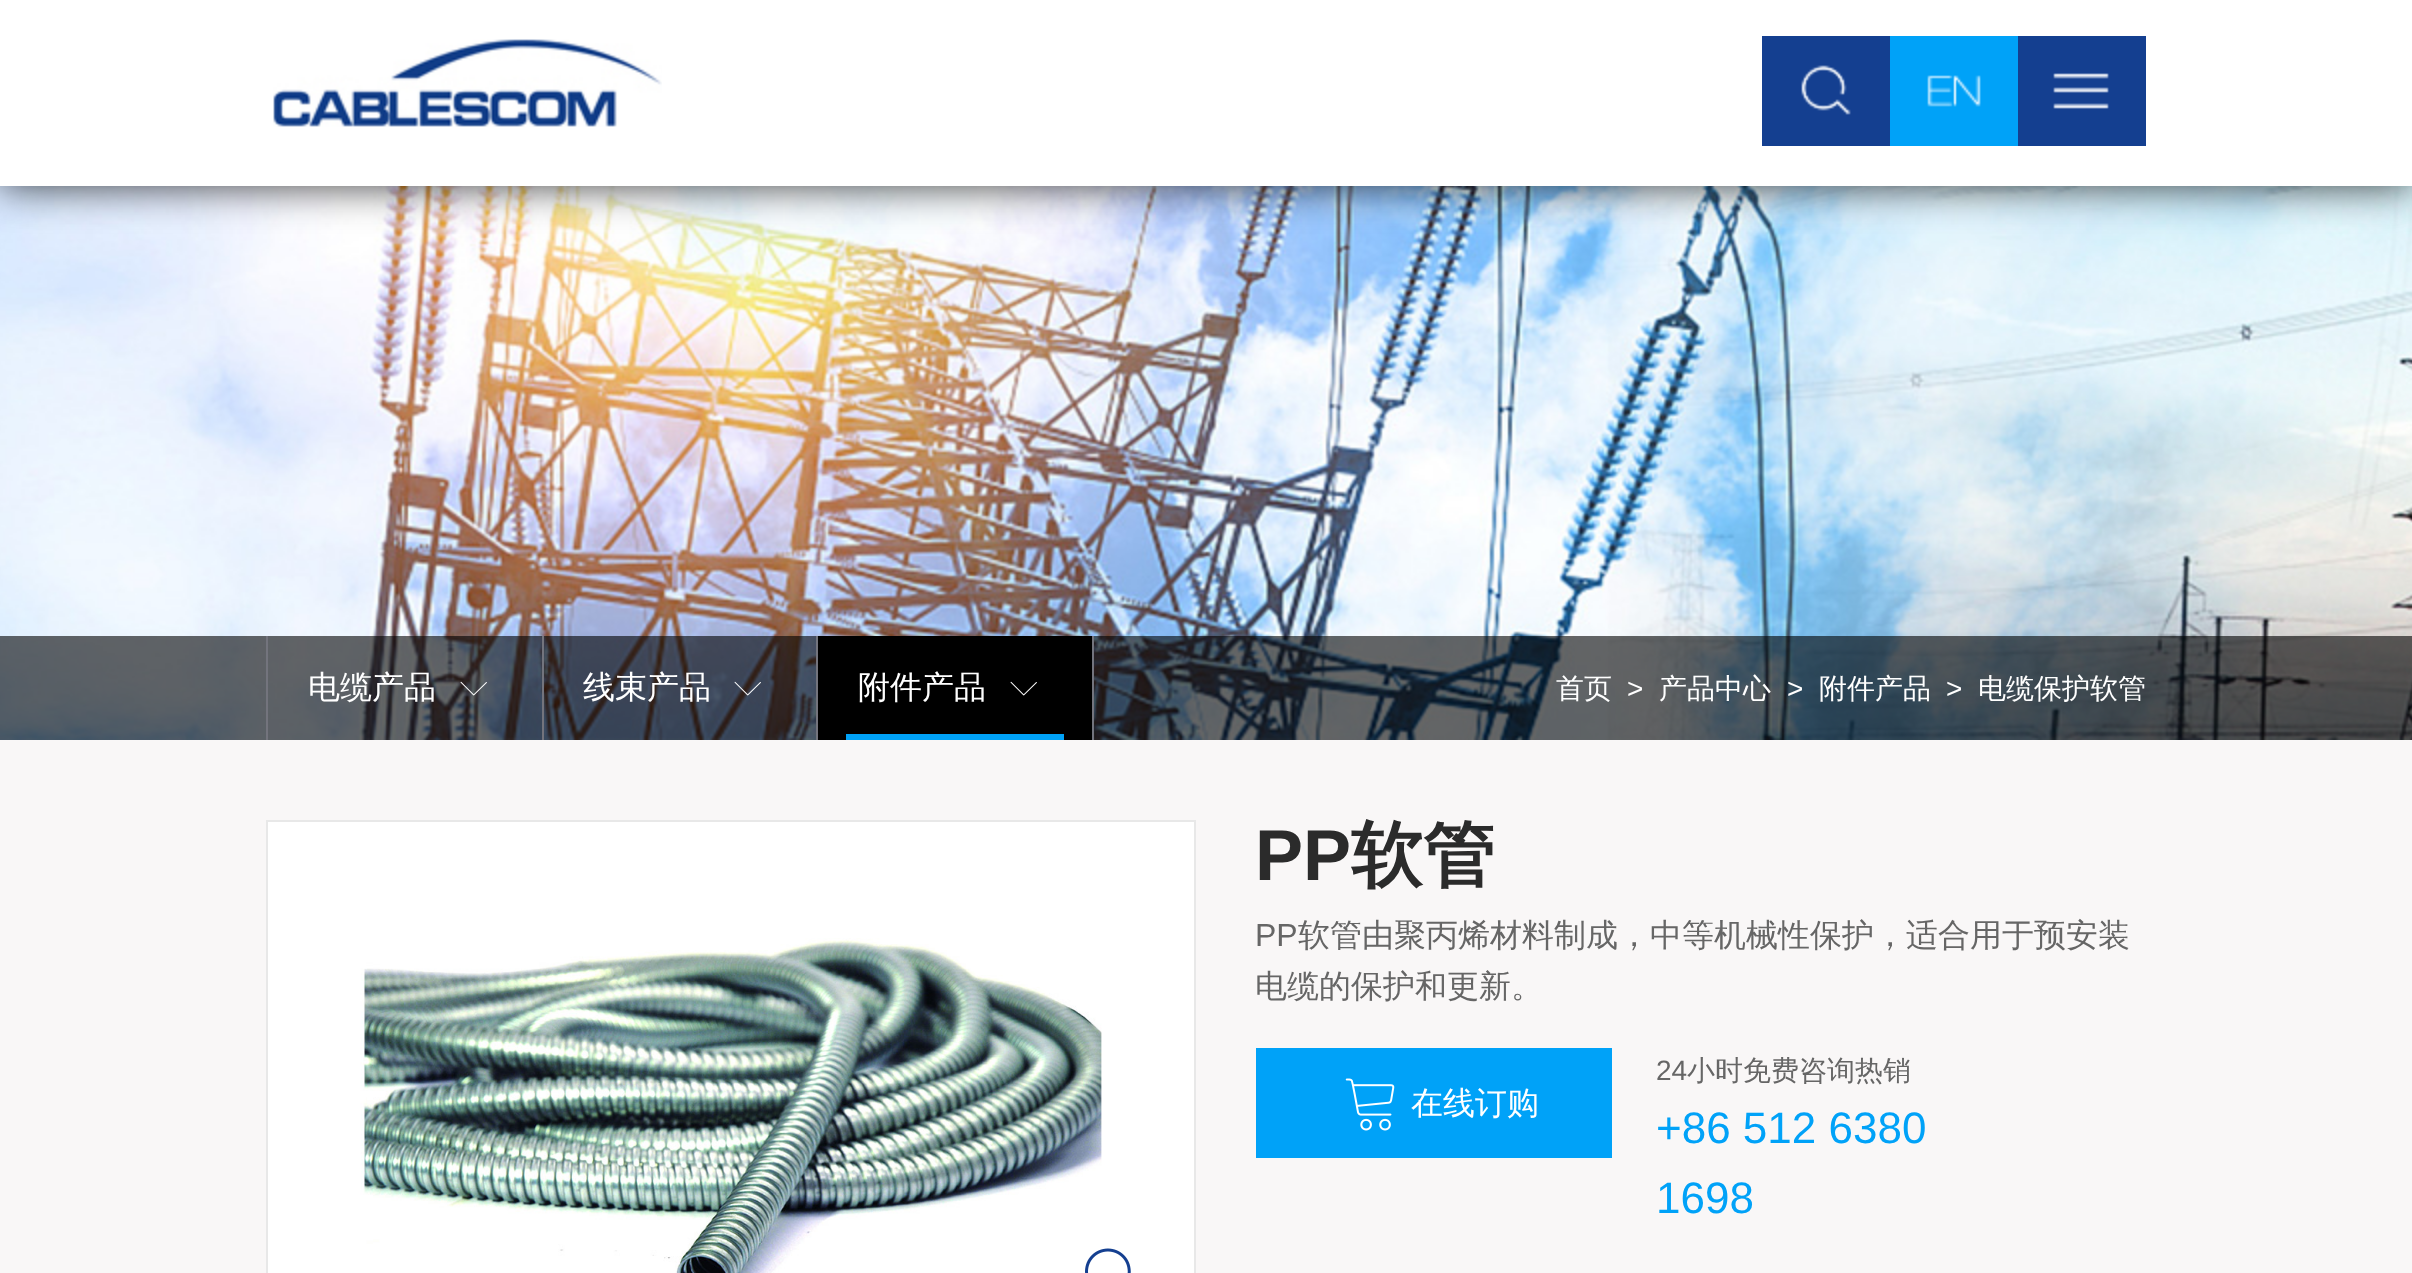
(async () => {
    const canvas = document.querySelector("canvas");
    canvas.width = 2412;
    canvas.height = 1273;
    const context = canvas.getContext("2d");
    context.miterLimit = 4;
    context.fontKerning = "normal";
    function write(s, x, y, font, color) {
        context.font = font;
        context.fillStyle = color;
        context.fillText(s, x, y);
    }
    function block(x, y, w, h, color) {
        context.fillStyle = color;
        context.fillRect(x, y, w, h);
    }
    async function photo(src, x, y, w, h) {
        const img = new Image();
        img.src = src;
        await img.decode();
        context.drawImage(img, x, y, w, h);
    }

    block(0, 0, 2412, 1273, "rgb(249, 247, 247)");
    await photo("media/5.png", 0, 186, 2412, 554);
    context.fillStyle = "rgba(0, 0, 0, 0.75)";
    context.filter = "blur(20px)";
    context.beginPath();
    context.rect(0, 0, 2412, 186);
    context.fill();
    context.filter = "none";
    block(0, 0, 2412, 186, "rgb(255, 255, 255)");
    await photo("media/1.png", 273, 39, 389, 88);
    block(1762, 36, 128, 110, "rgb(20, 63, 144)");
    await photo("media/2.png", 1801, 65, 50, 50);
    block(1890, 36, 128, 110, "rgb(0, 162, 248)");
    await photo("media/3.png", 1927, 75, 54, 32);
    block(2018, 36, 128, 110, "rgb(20, 63, 144)");
    await photo("media/4.png", 2053, 73, 56, 36);
    block(0, 636, 2412, 104, "rgba(0, 0, 0, 0.6)");
    block(542, 636, 2, 104, "rgb(115, 116, 125)");
    block(266, 636, 2, 104, "rgb(115, 116, 125)");
    write("电缆产品", 308, 698, "500 32px WenQuanYi Zen Hei", "rgb(255, 255, 255)");
    await photo("media/6.png", 460, 681, 27, 15);
    block(816, 636, 2, 104, "rgb(115, 116, 125)");
    write("线束产品", 583, 698, "500 32px WenQuanYi Zen Hei", "rgb(255, 255, 255)");
    await photo("media/7.png", 734, 681, 27, 15);
    block(818, 636, 274, 104, "rgb(0, 0, 0)");
    block(1092, 636, 2, 104, "rgb(115, 116, 125)");
    write("附件产品", 858, 698, "500 32px WenQuanYi Zen Hei", "rgb(255, 255, 255)");
    await photo("media/8.png", 1010, 681, 27, 15);
    block(846, 734, 218, 6, "rgb(0, 162, 248)");
    write("首页", 1556, 698, "500 28px WenQuanYi Zen Hei", "rgb(255, 255, 255)");
    write(">", 1627, 698, "28px Liberation Sans", "rgb(255, 255, 255)");
    write("产品中心", 1659, 698, "500 28px WenQuanYi Zen Hei", "rgb(255, 255, 255)");
    write(">", 1787, 698, "28px Liberation Sans", "rgb(255, 255, 255)");
    write("附件产品", 1819, 698, "500 28px WenQuanYi Zen Hei", "rgb(255, 255, 255)");
    write(">", 1946, 698, "28px Liberation Sans", "rgb(255, 255, 255)");
    write("电缆保护软管", 1978, 698, "500 28px WenQuanYi Zen Hei", "rgb(255, 255, 255)");
    context.strokeStyle = "rgb(232, 232, 232)";
    context.lineWidth = 2;
    context.strokeRect(267, 821, 928, 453);
    await photo("media/9.png", 268, 822, 926, 451);
    await photo("media/10.png", 1085, 1248, 46, 25);
    write("PP", 1255, 880, "bold 72px Liberation Sans", "rgb(43, 43, 43)");
    write("软管", 1351, 880, "bold 72px WenQuanYi Zen Hei", "rgb(43, 43, 43)");
    write("PP", 1255, 946, "32px Liberation Sans", "rgb(102, 102, 102)");
    write("软管由聚丙烯材料制成，中等机械性保护，适合用于预安装", 1298, 946, "500 32px WenQuanYi Zen Hei", "rgb(102, 102, 102)");
    write("电缆的保护和更新。", 1255, 997, "500 32px WenQuanYi Zen Hei", "rgb(102, 102, 102)");
    block(1256, 1048, 356, 110, "rgb(0, 162, 248)");
    await photo("media/11.png", 1345, 1078, 50, 53);
    write("在线订购", 1411, 1114, "500 32px WenQuanYi Zen Hei", "rgb(255, 255, 255)");
    write("24", 1656, 1080, "28px Liberation Sans", "rgb(102, 102, 102)");
    write("小时免费咨询热销", 1687, 1080, "500 28px WenQuanYi Zen Hei", "rgb(102, 102, 102)");
    write("+86 512 6380", 1656, 1143, "44px Liberation Sans", "rgb(0, 162, 248)");
    write("1698", 1656, 1213, "44px Liberation Sans", "rgb(0, 162, 248)");
})();
